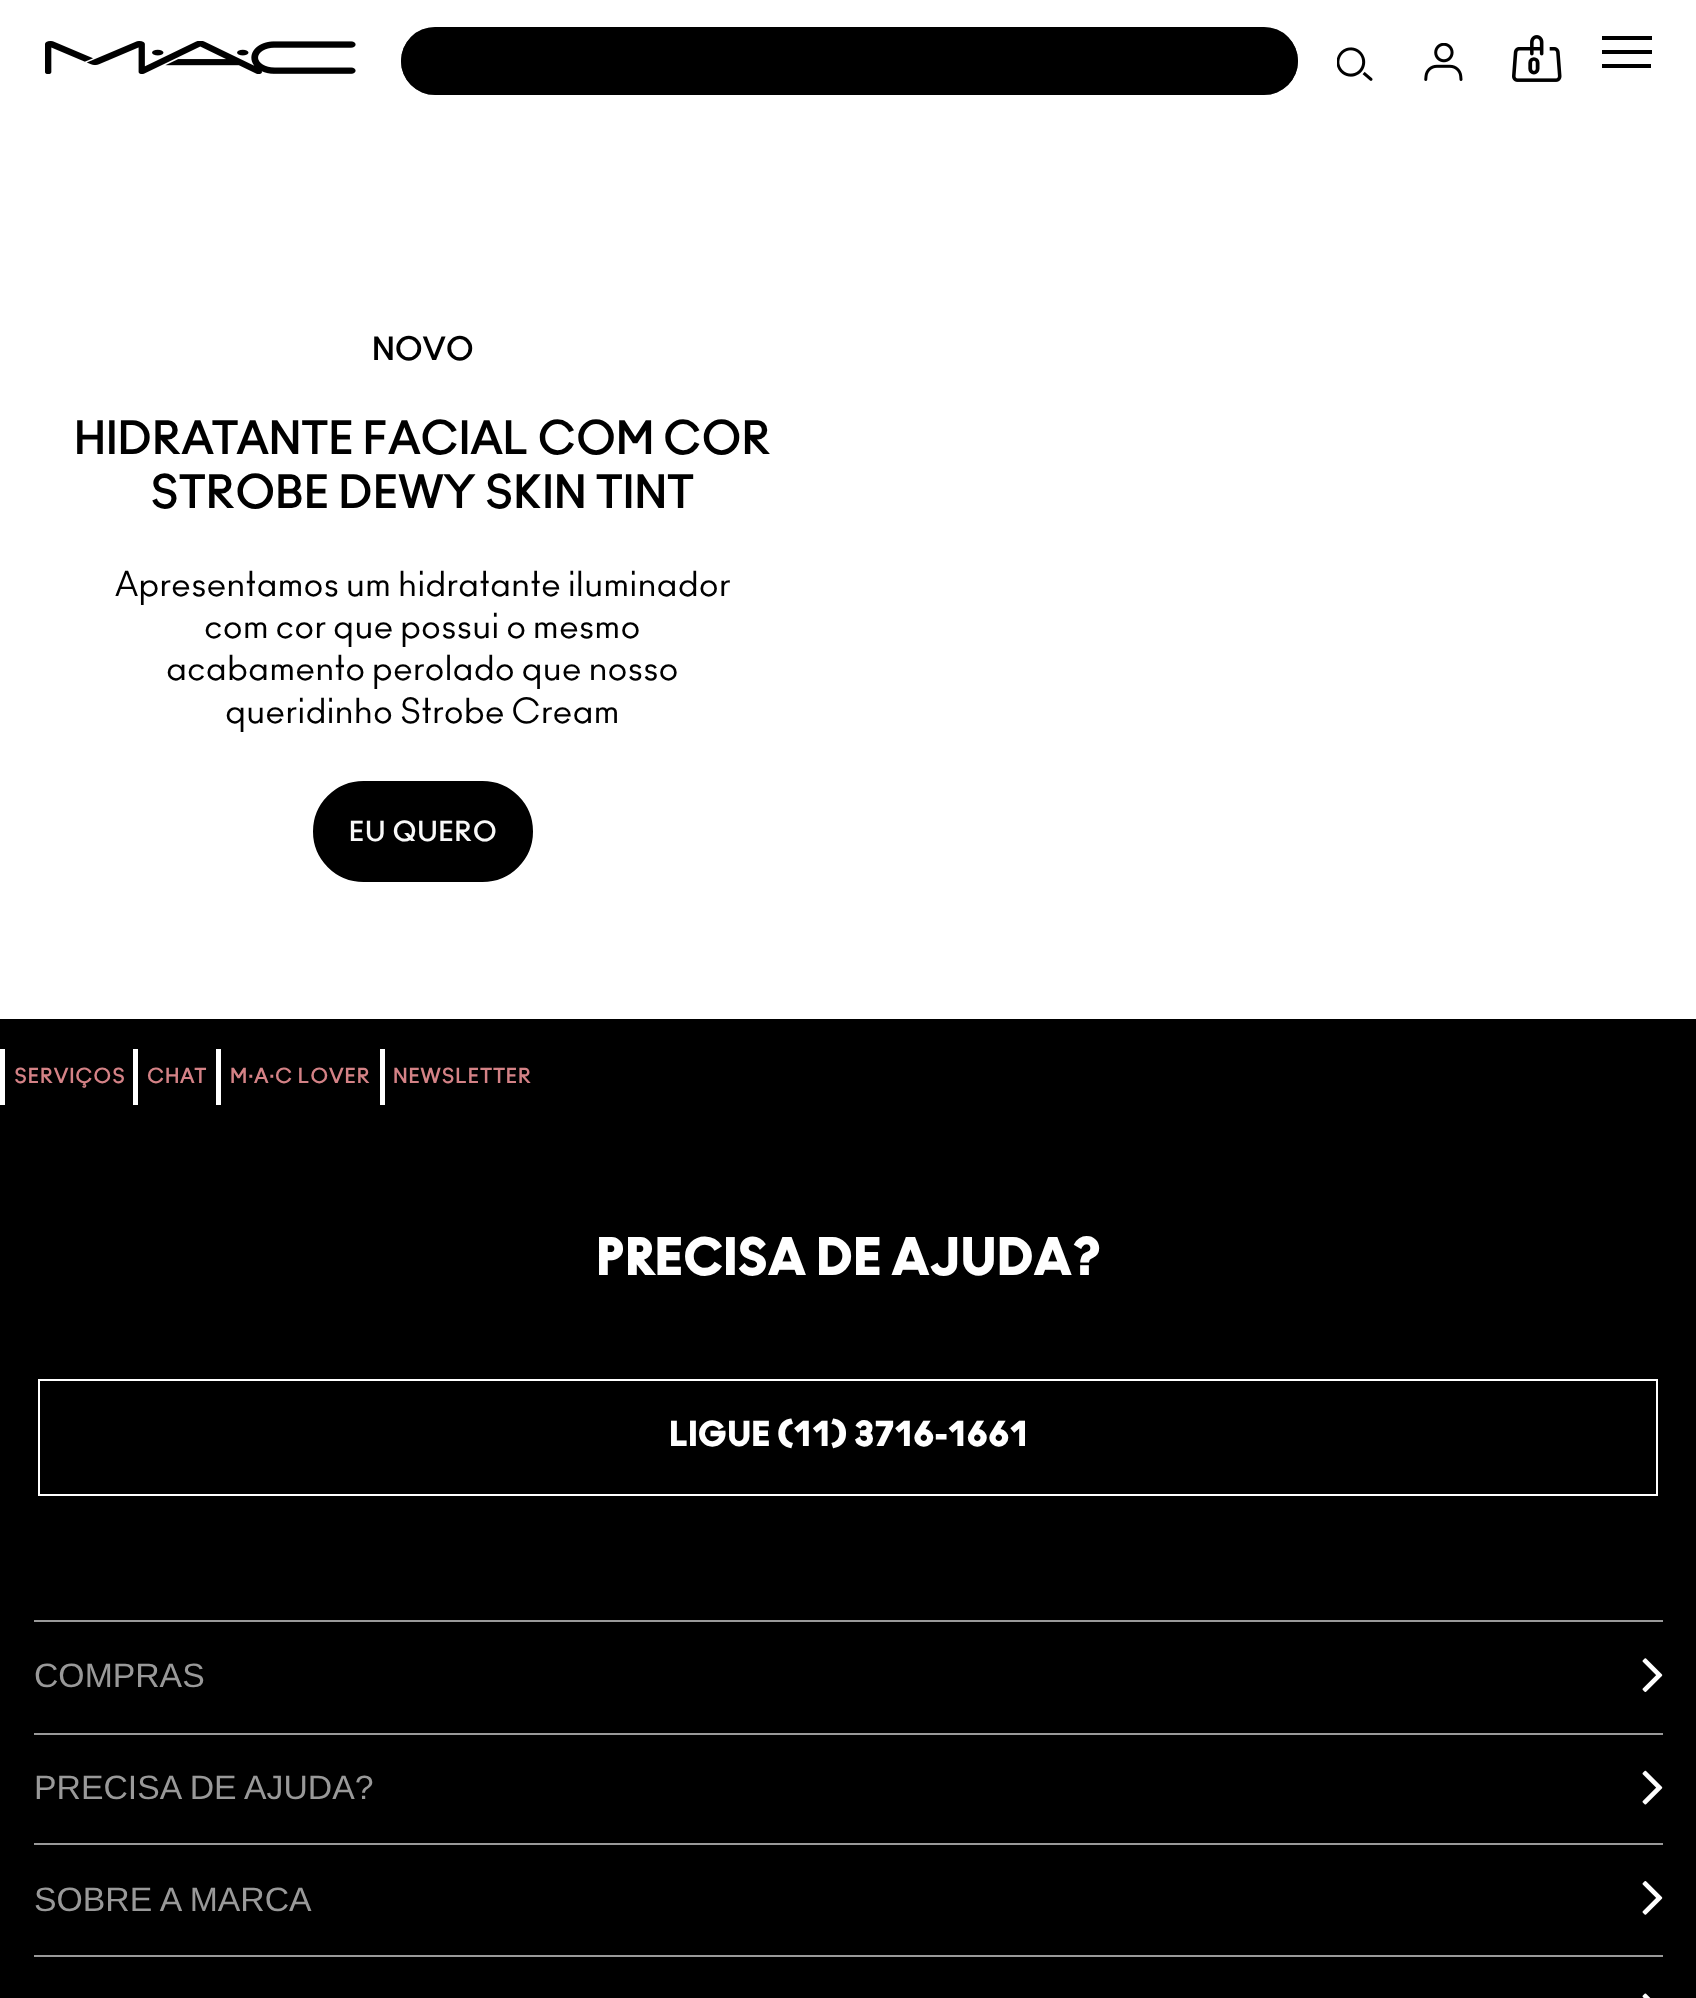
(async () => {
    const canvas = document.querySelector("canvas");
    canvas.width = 1696;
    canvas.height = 1998;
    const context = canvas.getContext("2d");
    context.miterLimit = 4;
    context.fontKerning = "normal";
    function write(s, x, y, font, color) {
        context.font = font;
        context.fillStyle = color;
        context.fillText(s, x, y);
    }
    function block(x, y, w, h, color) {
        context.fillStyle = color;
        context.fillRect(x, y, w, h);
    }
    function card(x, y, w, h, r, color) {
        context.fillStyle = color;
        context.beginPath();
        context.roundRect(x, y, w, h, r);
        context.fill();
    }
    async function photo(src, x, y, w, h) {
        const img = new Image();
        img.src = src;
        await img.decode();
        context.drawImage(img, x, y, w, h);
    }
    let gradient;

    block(0, 0, 1696, 1998, "rgb(255, 255, 255)");
    await photo("media/1.png", 45, 41, 311, 33);
    card(401, 27, 897, 68, 34, "rgb(0, 0, 0)");
    gradient = context.createLinearGradient(401, 61, 446, 61);
    gradient.addColorStop(0, "rgba(0, 0, 0, 0.9)");
    gradient.addColorStop(1, "rgba(0, 0, 0, 0.1)");
    context.fillStyle = gradient;
    context.beginPath();
    context.roundRect(401, 27, 45, 68, [34, 0, 0, 34]);
    context.fill();
    gradient = context.createLinearGradient(1298, 61, 1253, 61);
    gradient.addColorStop(0, "rgba(0, 0, 0, 0.9)");
    gradient.addColorStop(1, "rgba(0, 0, 0, 0.1)");
    context.fillStyle = gradient;
    context.beginPath();
    context.roundRect(1253, 27, 45, 68, [0, 34, 34, 0]);
    context.fill();
    await photo("media/2.png", 1337, 47, 36, 34);
    await photo("media/3.png", 1424, 43, 39, 38);
    await photo("media/4.png", 1512, 35, 50, 47);
    write("0", 1527, 74, "900 22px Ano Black", "rgb(0, 0, 0)");
    context.beginPath();
    context.moveTo(1602, 36);
    context.lineTo(1652, 36);
    context.lineTo(1652, 40);
    context.lineTo(1602, 40);
    context.closePath();
    context.moveTo(1602, 50);
    context.lineTo(1652, 50);
    context.lineTo(1652, 54);
    context.lineTo(1602, 54);
    context.closePath();
    context.moveTo(1602, 64);
    context.lineTo(1651, 64);
    context.lineTo(1651, 68);
    context.lineTo(1602, 68);
    context.closePath();
    context.fill();
    write("NOVO", 372, 360, "bold 31.5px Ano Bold", "rgb(0, 0, 0)");
    write("HIDRATANTE FACIAL COM COR", 74, 454, "bold 45px Ano Bold", "rgb(0, 0, 0)");
    write("STROBE DEWY SKIN TINT", 150, 508, "bold 45px Ano Bold", "rgb(0, 0, 0)");
    write("Apresentamos um hidratante iluminador", 115, 596, "33.75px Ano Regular", "rgb(0, 0, 0)");
    write("com cor que possui o mesmo", 204, 638, "33.75px Ano Regular", "rgb(0, 0, 0)");
    write("acabamento perolado que nosso", 166, 680, "33.75px Ano Regular", "rgb(0, 0, 0)");
    write("queridinho Strobe Cream", 225, 723, "33.75px Ano Regular", "rgb(0, 0, 0)");
    context.beginPath();
    context.roundRect(314, 782, 218, 99, 49.5);
    context.fill();
    context.strokeStyle = "rgb(0, 0, 0)";
    context.lineWidth = 2;
    context.stroke();
    context.letterSpacing = "0.75px";
    write("EU QUERO", 349, 841, "bold 27px Ano Bold", "rgb(249, 249, 249)");
    block(0, 1019, 1696, 979, "rgb(0, 0, 0)");
    block(0, 1049, 5, 56, "rgb(255, 255, 255)");
    write("SERVIÇOS", 14, 1083, "bold 20.25px Ano Bold", "rgb(212, 130, 134)");
    block(133, 1049, 5, 56, "rgb(255, 255, 255)");
    write("CHAT", 147, 1083, "bold 20.25px Ano Bold", "rgb(212, 130, 134)");
    block(216, 1049, 5, 56, "rgb(255, 255, 255)");
    write("M", 230, 1083, "bold 20.25px Ano Bold", "rgb(212, 130, 134)");
    write("∙", 248, 1083, "bold 20.25px Liberation Sans", "rgb(212, 130, 134)");
    write("A", 254, 1083, "bold 20.25px Ano Bold", "rgb(212, 130, 134)");
    write("∙", 269, 1083, "bold 20.25px Liberation Sans", "rgb(212, 130, 134)");
    write("C LOVER", 275, 1083, "bold 20.25px Ano Bold", "rgb(212, 130, 134)");
    block(380, 1049, 5, 56, "rgb(255, 255, 255)");
    write("NEWSLETTER", 393, 1083, "bold 20.25px Ano Bold", "rgb(212, 130, 134)");
    context.letterSpacing = "0px";
    write("PRECISA DE AJUDA?", 596, 1275, "900 50.6px Ano Black", "rgb(255, 255, 255)");
    context.strokeStyle = "rgb(255, 255, 255)";
    context.strokeRect(39, 1380, 1618, 115);
    write("LIGUE (11) 3716-1661", 669, 1446, "900 33.75px Ano Black", "rgb(255, 255, 255)");
    block(34, 1620, 1629, 2, "rgb(153, 153, 153)");
    write("COMPRAS", 34, 1687, "33.75px Liberation Sans", "rgb(153, 153, 153)");
    await photo("media/5.png", 1642, 1658, 21, 34);
    block(34, 1733, 1629, 2, "rgb(153, 153, 153)");
    write("PRECISA DE AJUDA?", 34, 1799, "33.75px Liberation Sans", "rgb(153, 153, 153)");
    await photo("media/6.png", 1642, 1770, 21, 35);
    block(34, 1843, 1629, 2, "rgb(153, 153, 153)");
    write("SOBRE A MARCA", 34, 1911, "33.75px Liberation Sans", "rgb(153, 153, 153)");
    await photo("media/7.png", 1642, 1881, 21, 34);
    block(34, 1955, 1629, 2, "rgb(153, 153, 153)");
    await photo("media/8.png", 1642, 1993, 9, 5);
})();
